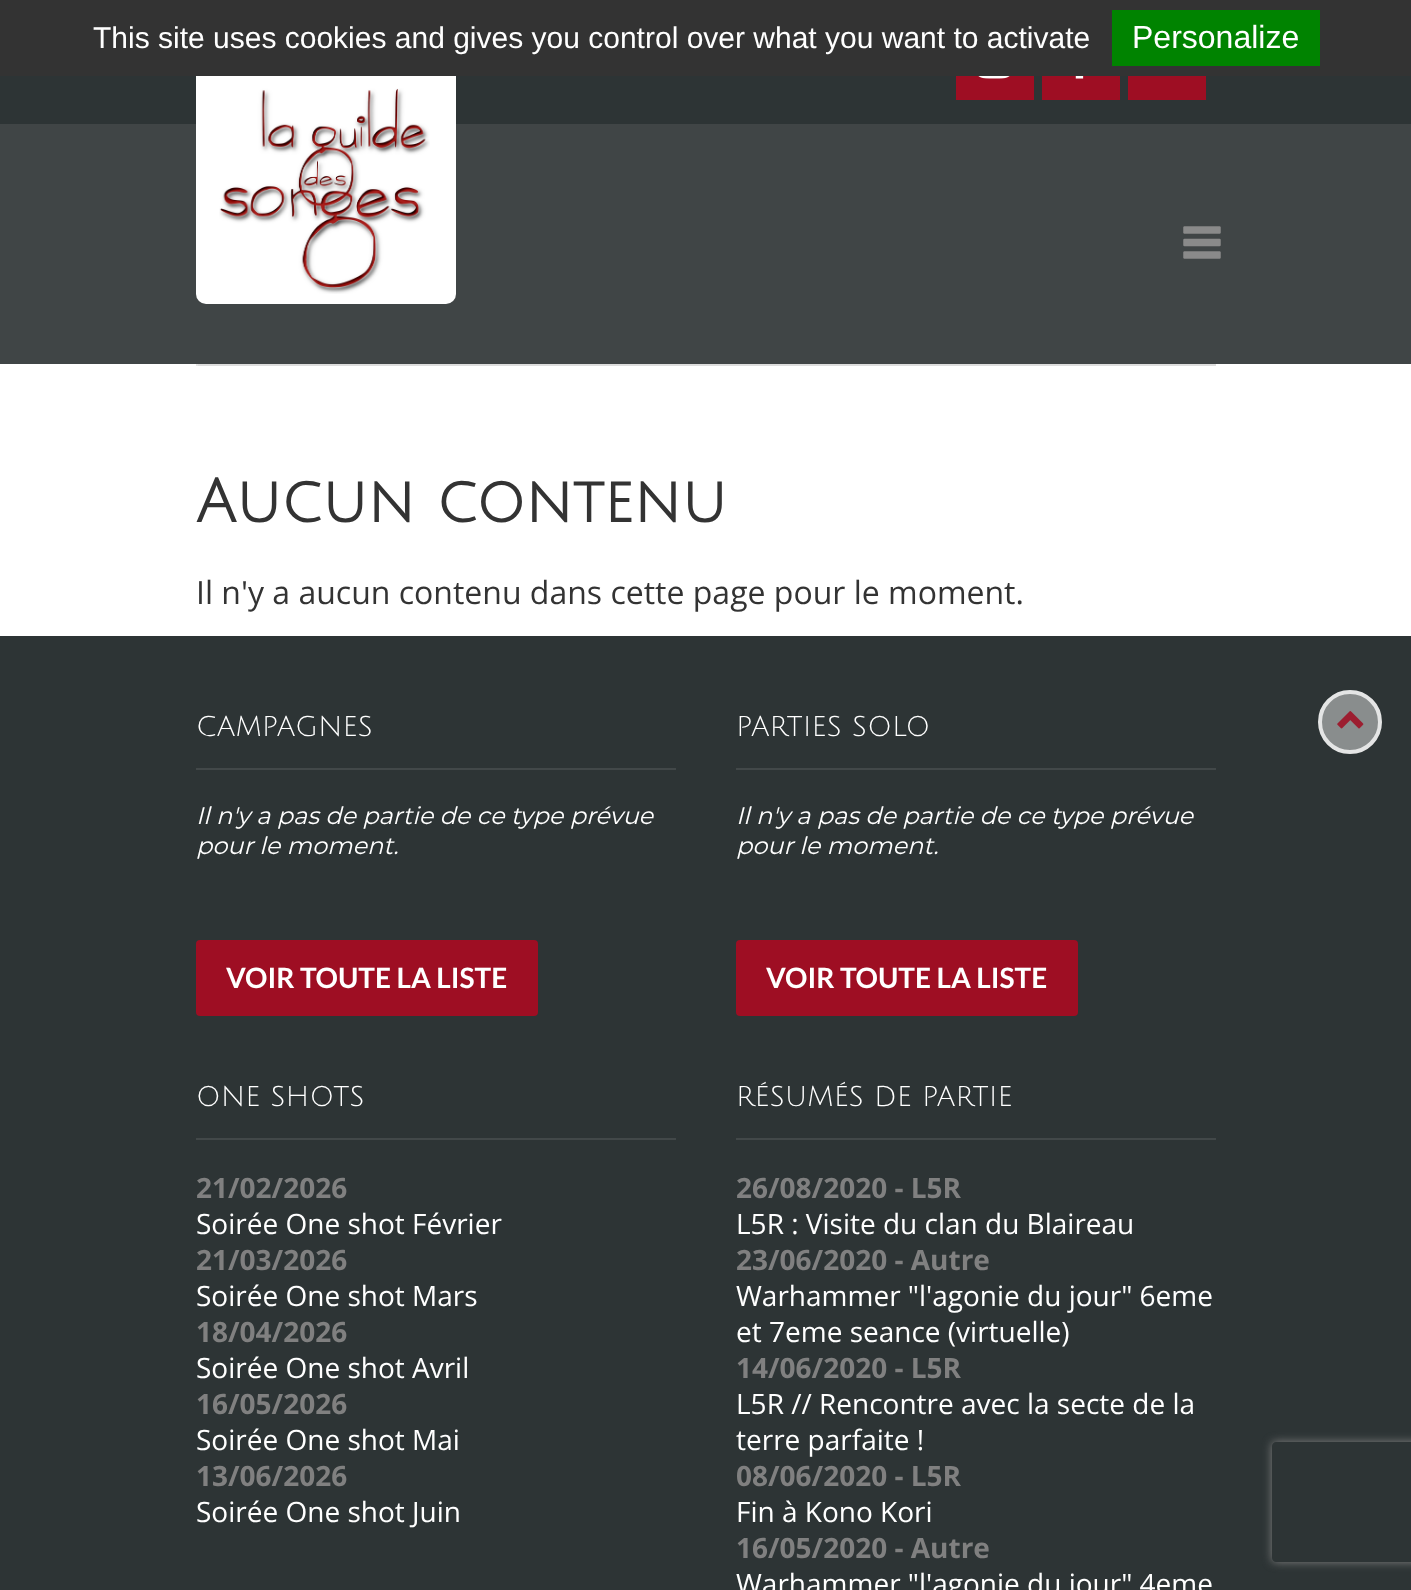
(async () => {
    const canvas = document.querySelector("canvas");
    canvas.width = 1411;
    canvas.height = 1590;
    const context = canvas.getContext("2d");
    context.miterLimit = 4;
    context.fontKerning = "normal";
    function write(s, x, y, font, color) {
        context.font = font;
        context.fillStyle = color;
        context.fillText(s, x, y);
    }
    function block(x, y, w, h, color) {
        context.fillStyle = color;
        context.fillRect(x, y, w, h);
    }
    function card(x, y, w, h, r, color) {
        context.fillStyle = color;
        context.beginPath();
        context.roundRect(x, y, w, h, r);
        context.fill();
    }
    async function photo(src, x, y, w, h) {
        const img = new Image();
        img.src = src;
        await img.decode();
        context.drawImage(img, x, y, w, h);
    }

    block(0, 0, 1411, 1590, "rgb(255, 255, 255)");
    block(0, 124, 1411, 240, "rgb(64, 69, 70)");
    block(0, 76, 1411, 48, "rgb(45, 52, 53)");
    card(196, 44, 260, 260, 10, "rgb(255, 255, 255)");
    block(0, 0, 1411, 76, "rgb(51, 51, 51)");
    write("This site uses cookies and gives you control over what you want to activate", 93, 48, "30px Liberation Sans", "rgb(255, 255, 255)");
    block(1112, 10, 208, 56, "rgb(0, 131, 0)");
    write("Personalize", 1132, 48, "32px Liberation Sans", "rgb(255, 255, 255)");
    await photo("media/1.png", 219, 88, 211, 206);
    await photo("media/2.png", 1183, 226, 38, 33);
    block(956, 76, 78, 24, "rgb(158, 14, 35)");
    await photo("media/3.png", 978, 76, 32, 3);
    block(1042, 76, 78, 24, "rgb(158, 14, 35)");
    await photo("media/4.png", 1075, 76, 9, 3);
    block(1128, 76, 78, 24, "rgb(158, 14, 35)");
    block(198, 364, 1018, 2, "rgb(221, 221, 221)");
    context.beginPath();
    context.arc(197, 365, 1, 0, Math.PI * 2);
    context.fill();
    write("Aucun contenu", 196, 522, "bold 60px Julius Sans One", "rgb(51, 51, 51)");
    write("Il n'y a aucun contenu dans cette page pour le moment.", 196, 604, "32px Open Sans", "rgb(51, 51, 51)");
    block(0, 636, 1411, 954, "rgb(45, 52, 53)");
    block(196, 768, 480, 2, "rgb(66, 72, 73)");
    write("CAMPAGNES", 196, 736, "28px Julius Sans One", "rgb(255, 255, 255)");
    write("Il n'y a pas de partie de ce type prévue", 196, 824, "italic 24px Montserrat", "rgb(255, 255, 255)");
    write("pour le moment.", 196, 854, "italic 24px Montserrat", "rgb(255, 255, 255)");
    card(196, 940, 342, 76, 4, "rgb(158, 14, 35)");
    write("VOIR TOUTE LA LISTE", 226, 988, "bold 28px Lato", "rgb(255, 255, 255)");
    block(736, 768, 480, 2, "rgb(66, 72, 73)");
    write("PARTIES SOLO", 736, 736, "28px Julius Sans One", "rgb(255, 255, 255)");
    write("Il n'y a pas de partie de ce type prévue", 736, 824, "italic 24px Montserrat", "rgb(255, 255, 255)");
    write("pour le moment.", 736, 854, "italic 24px Montserrat", "rgb(255, 255, 255)");
    card(736, 940, 342, 76, 4, "rgb(158, 14, 35)");
    write("VOIR TOUTE LA LISTE", 766, 988, "bold 28px Lato", "rgb(255, 255, 255)");
    context.fillStyle = "rgb(137, 141, 141)";
    context.beginPath();
    context.arc(1350, 722, 30, 0, Math.PI * 2);
    context.fill();
    context.strokeStyle = "rgb(228, 229, 229)";
    context.lineWidth = 4;
    context.stroke();
    await photo("media/5.png", 1337, 711, 27, 18);
    block(196, 1138, 480, 2, "rgb(66, 72, 73)");
    write("ONE SHOTS", 196, 1106, "28px Julius Sans One", "rgb(255, 255, 255)");
    write("21/02/2026", 196, 1198, "bold 28px Open Sans", "rgb(128, 128, 128)");
    write("Soirée One shot Février", 196, 1234, "28px Open Sans", "rgb(255, 255, 255)");
    write("21/03/2026", 196, 1270, "bold 28px Open Sans", "rgb(128, 128, 128)");
    write("Soirée One shot Mars", 196, 1306, "28px Open Sans", "rgb(255, 255, 255)");
    write("18/04/2026", 196, 1342, "bold 28px Open Sans", "rgb(128, 128, 128)");
    write("Soirée One shot Avril", 196, 1378, "28px Open Sans", "rgb(255, 255, 255)");
    write("16/05/2026", 196, 1414, "bold 28px Open Sans", "rgb(128, 128, 128)");
    write("Soirée One shot Mai", 196, 1450, "28px Open Sans", "rgb(255, 255, 255)");
    write("13/06/2026", 196, 1486, "bold 28px Open Sans", "rgb(128, 128, 128)");
    write("Soirée One shot Juin", 196, 1522, "28px Open Sans", "rgb(255, 255, 255)");
    block(736, 1138, 480, 2, "rgb(66, 72, 73)");
    write("RÉSUMÉS DE PARTIE", 736, 1106, "28px Julius Sans One", "rgb(255, 255, 255)");
    write("26/08/2020 - L5R", 736, 1198, "bold 28px Open Sans", "rgb(128, 128, 128)");
    write("L5R : Visite du clan du Blaireau", 736, 1234, "28px Open Sans", "rgb(255, 255, 255)");
    write("23/06/2020 - Autre", 736, 1270, "bold 28px Open Sans", "rgb(128, 128, 128)");
    write("Warhammer \"l'agonie du jour\" 6eme", 736, 1306, "28px Open Sans", "rgb(255, 255, 255)");
    write("et 7eme seance (virtuelle)", 736, 1342, "28px Open Sans", "rgb(255, 255, 255)");
    write("14/06/2020 - L5R", 736, 1378, "bold 28px Open Sans", "rgb(128, 128, 128)");
    write("L5R // Rencontre avec la secte de la", 736, 1414, "28px Open Sans", "rgb(255, 255, 255)");
    write("terre parfaite !", 736, 1450, "28px Open Sans", "rgb(255, 255, 255)");
    write("08/06/2020 - L5R", 736, 1486, "bold 28px Open Sans", "rgb(128, 128, 128)");
    write("Fin à Kono Kori", 736, 1522, "28px Open Sans", "rgb(255, 255, 255)");
    write("16/05/2020 - Autre", 736, 1558, "bold 28px Open Sans", "rgb(128, 128, 128)");
    write("Warhammer \"l'agonie du jour\" 4eme", 736, 1594, "28px Open Sans", "rgb(255, 255, 255)");
    context.save();
    context.beginPath();
    context.moveTo(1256, 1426);
    context.lineTo(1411, 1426);
    context.lineTo(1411, 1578);
    context.lineTo(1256, 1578);
    context.closePath();
    context.moveTo(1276, 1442);
    context.lineTo(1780, 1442);
    context.bezierCurveTo(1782, 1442, 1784, 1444, 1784, 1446);
    context.lineTo(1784, 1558);
    context.bezierCurveTo(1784, 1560, 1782, 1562, 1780, 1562);
    context.lineTo(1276, 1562);
    context.bezierCurveTo(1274, 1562, 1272, 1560, 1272, 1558);
    context.lineTo(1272, 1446);
    context.bezierCurveTo(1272, 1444, 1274, 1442, 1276, 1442);
    context.closePath();
    context.clip("evenodd");
    context.fillStyle = "rgb(128, 128, 128)";
    context.filter = "blur(5px)";
    context.beginPath();
    context.roundRect(1272, 1442, 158, 120, 4);
    context.fill();
    context.filter = "none";
    context.restore();
})();
